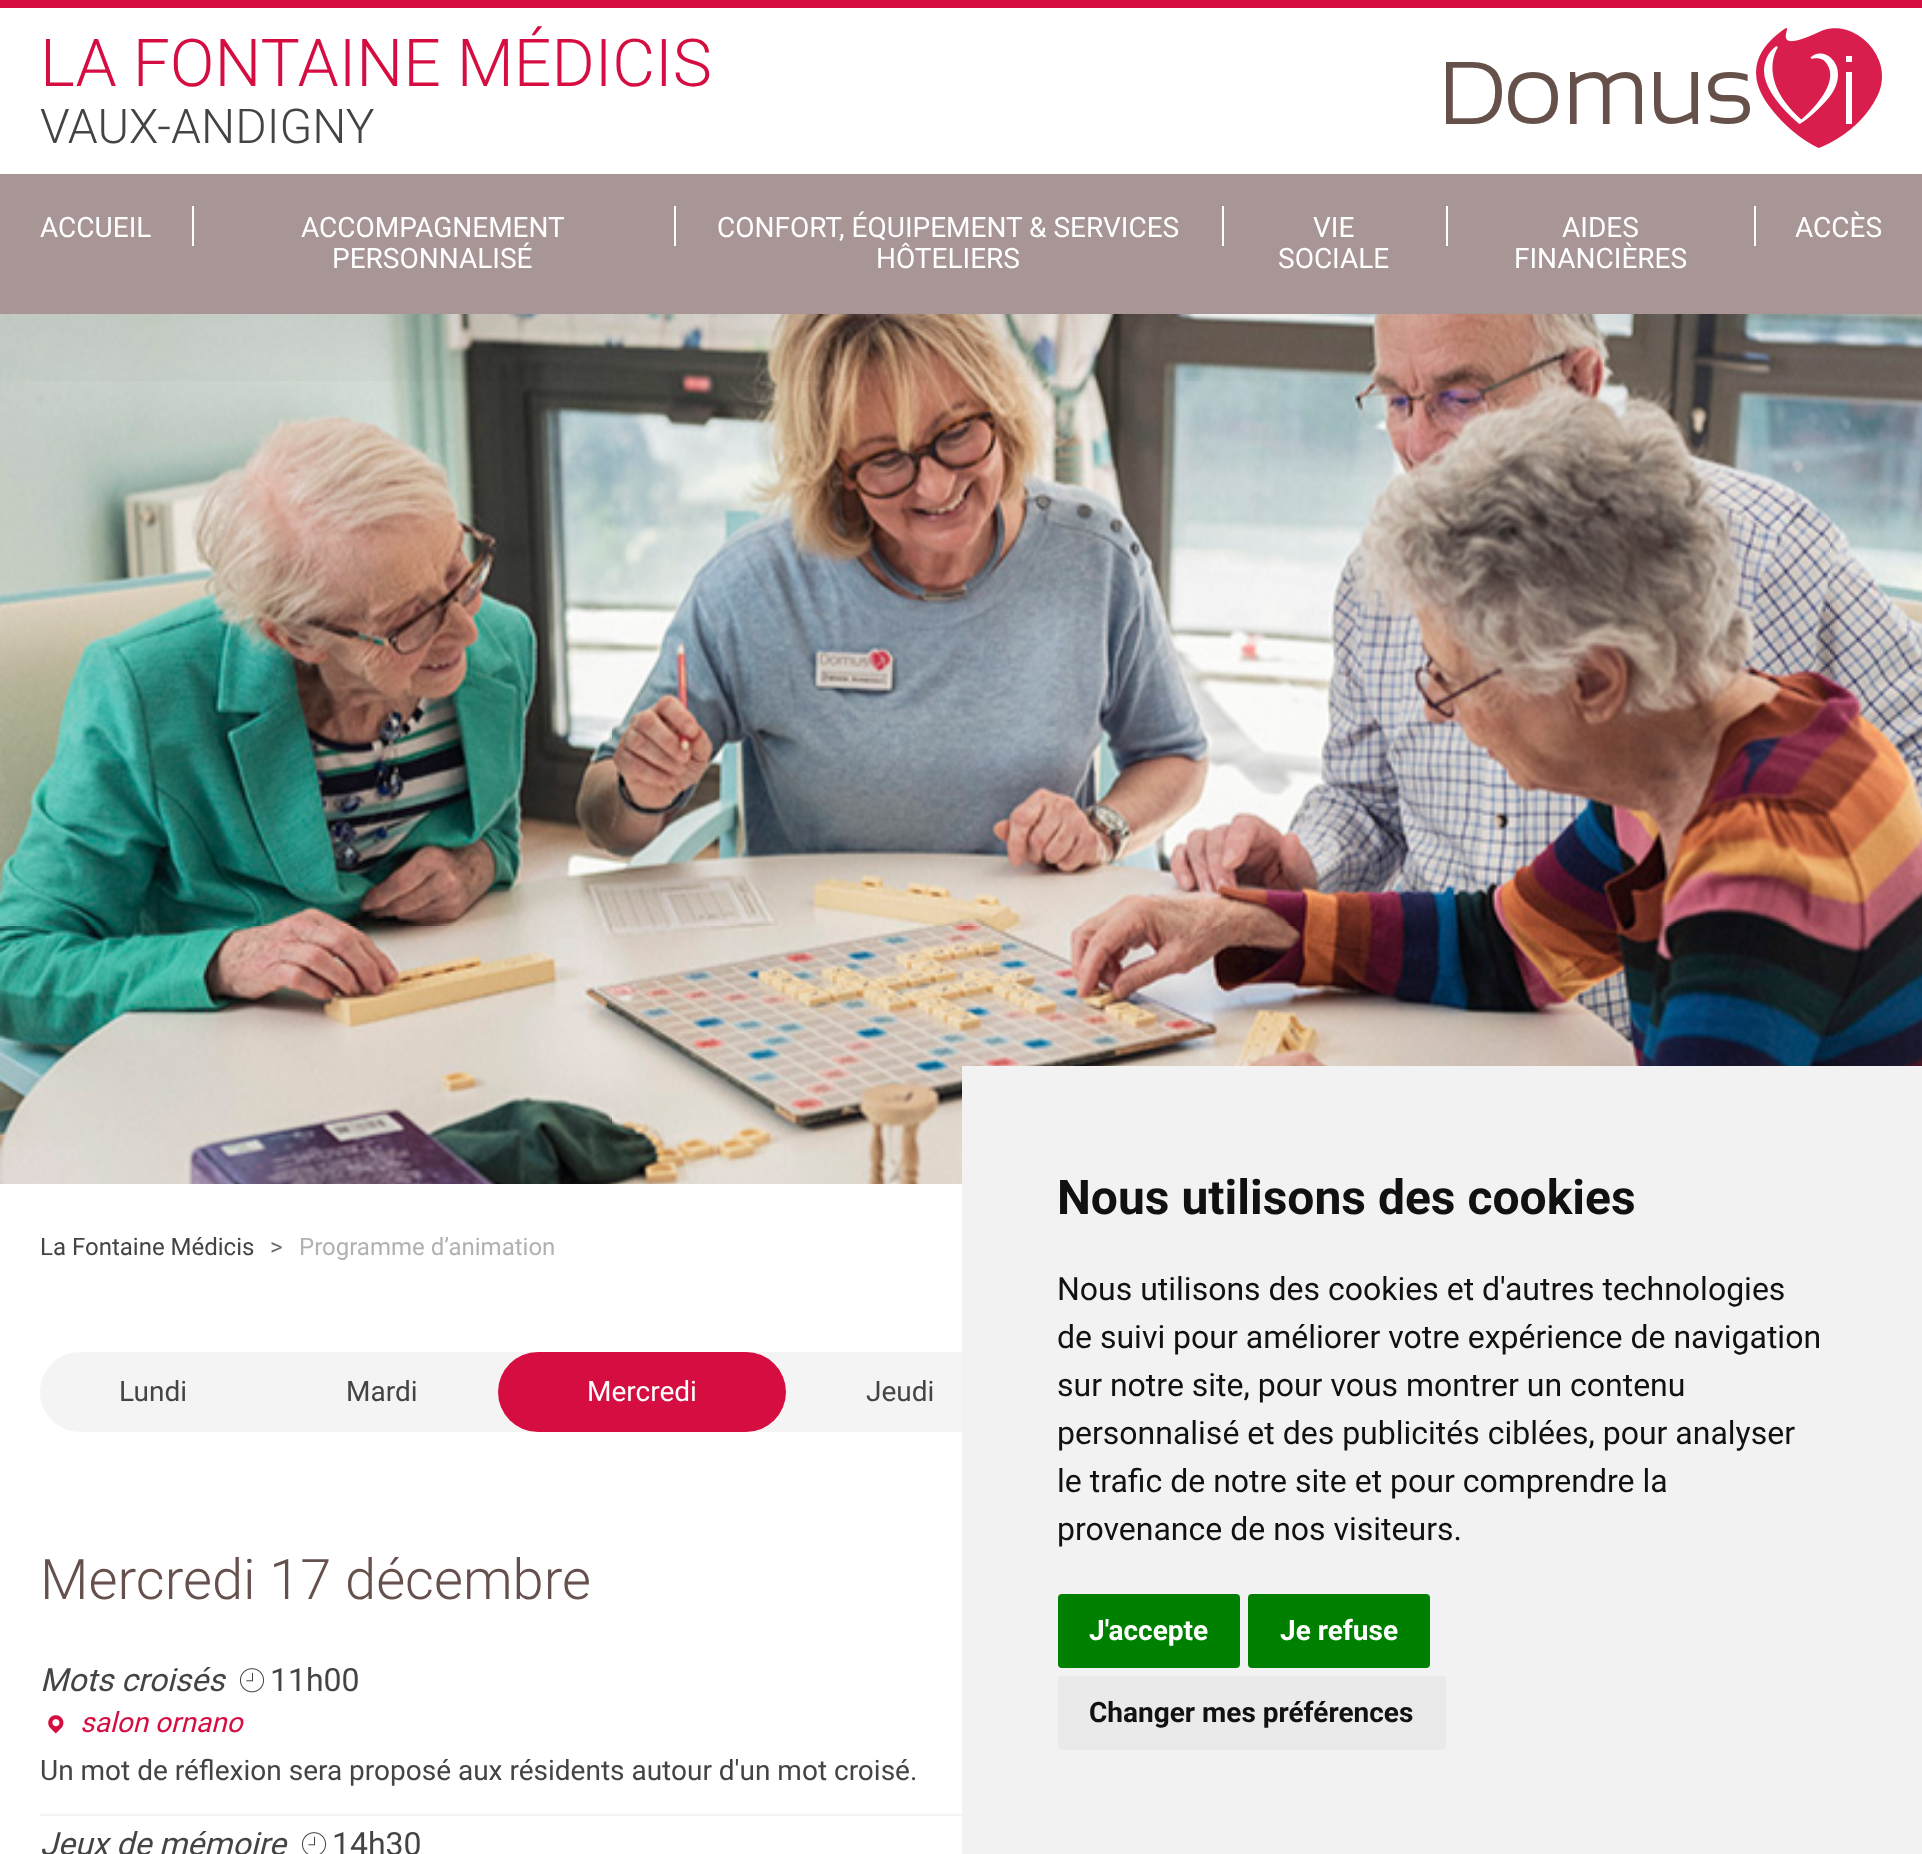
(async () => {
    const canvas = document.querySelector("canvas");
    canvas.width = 1922;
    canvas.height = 1854;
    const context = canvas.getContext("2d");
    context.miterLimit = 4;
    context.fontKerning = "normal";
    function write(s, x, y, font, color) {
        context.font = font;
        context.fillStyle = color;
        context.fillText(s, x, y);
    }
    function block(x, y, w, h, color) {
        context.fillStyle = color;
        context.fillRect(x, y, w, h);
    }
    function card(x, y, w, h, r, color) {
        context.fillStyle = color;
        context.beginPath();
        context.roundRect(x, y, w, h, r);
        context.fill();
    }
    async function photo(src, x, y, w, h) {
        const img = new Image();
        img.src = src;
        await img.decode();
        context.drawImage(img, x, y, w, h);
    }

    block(0, 0, 1922, 1854, "rgb(255, 255, 255)");
    await photo("media/2.png", 0, 314, 1922, 870);
    context.save();
    context.beginPath();
    context.rect(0, 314, 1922, 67);
    context.clip();
    context.fillStyle = "rgba(0, 0, 0, 0.1)";
    context.filter = "blur(80px)";
    context.beginPath();
    context.rect(0, 0, 1922, 314);
    context.fill();
    context.filter = "none";
    context.restore();
    block(0, 0, 1922, 8, "rgb(213, 13, 65)");
    write("LA FONTAINE MÉDICIS", 40, 86, "300 66px Roboto", "rgb(213, 13, 65)");
    write("VAUX-ANDIGNY", 40, 143, "300 48px Roboto", "rgb(68, 68, 68)");
    await photo("media/1.png", 1446, 28, 436, 120);
    block(0, 174, 1922, 140, "rgb(168, 149, 150)");
    write("ACCUEIL", 40, 237, "28px Roboto", "rgb(255, 255, 255)");
    block(192, 206, 2, 40, "rgb(255, 255, 255)");
    write("ACCOMPAGNEMENT", 301, 237, "28px Roboto", "rgb(255, 255, 255)");
    block(674, 206, 2, 40, "rgb(255, 255, 255)");
    write("PERSONNALISÉ", 332, 268, "28px Roboto", "rgb(255, 255, 255)");
    write("CONFORT, ÉQUIPEMENT & SERVICES", 717, 237, "28px Roboto", "rgb(255, 255, 255)");
    block(1222, 206, 2, 40, "rgb(255, 255, 255)");
    write("HÔTELIERS", 876, 268, "28px Roboto", "rgb(255, 255, 255)");
    write("VIE", 1313, 237, "28px Roboto", "rgb(255, 255, 255)");
    block(1446, 206, 2, 40, "rgb(255, 255, 255)");
    write("SOCIALE", 1278, 268, "28px Roboto", "rgb(255, 255, 255)");
    write("AIDES", 1562, 237, "28px Roboto", "rgb(255, 255, 255)");
    block(1754, 206, 2, 40, "rgb(255, 255, 255)");
    write("FINANCIÈRES", 1514, 268, "28px Roboto", "rgb(255, 255, 255)");
    write("ACCÈS", 1795, 237, "28px Roboto", "rgb(255, 255, 255)");
    write("La Fontaine Médicis", 40, 1255, "24px Roboto", "rgb(68, 68, 68)");
    write(">", 270, 1255, "24px Roboto", "rgb(111, 111, 111)");
    write("Programme d’animation", 299, 1255, "24px Roboto", "rgb(178, 177, 177)");
    card(40, 1352, 1842, 80, 40, "rgb(244, 244, 244)");
    write("Lundi", 119, 1401, "28px Roboto", "rgb(68, 68, 68)");
    write("Mardi", 346, 1401, "28px Roboto", "rgb(68, 68, 68)");
    card(498, 1352, 288, 80, 40, "rgb(213, 13, 65)");
    write("Mercredi", 587, 1401, "28px Roboto", "rgb(255, 255, 255)");
    write("Jeudi", 866, 1401, "28px Roboto", "rgb(68, 68, 68)");
    write("Mercredi 17 décembre", 40, 1599, "300 56px Roboto", "rgb(102, 80, 77)");
    write("Mots croisés", 40, 1691, "italic 32px Roboto", "rgb(68, 68, 68)");
    await photo("media/3.png", 239, 1668, 26, 25);
    write("11h00", 270, 1691, "32px Roboto", "rgb(68, 68, 68)");
    await photo("media/4.png", 48, 1715, 16, 19);
    write("salon ornano", 80, 1732, "italic 28px Roboto", "rgb(213, 13, 65)");
    write("Un mot de réflexion sera proposé aux résidents autour d'un mot croisé.", 40, 1780, "28px Roboto", "rgb(68, 68, 68)");
    block(40, 1814, 922, 2, "rgb(244, 244, 244)");
    write("Jeux de mémoire", 40, 1855, "italic 32px Roboto", "rgb(68, 68, 68)");
    await photo("media/5.png", 301, 1832, 26, 22);
    write("14h30", 332, 1855, "32px Roboto", "rgb(68, 68, 68)");
    block(962, 1066, 960, 788, "rgb(242, 242, 242)");
    write("Nous utilisons des cookies", 1057, 1214, "bold 48px Roboto", "rgb(17, 17, 17)");
    write("Nous utilisons des cookies et d'autres technologies", 1057, 1300, "32px Roboto", "rgb(17, 17, 17)");
    write("de suivi pour améliorer votre expérience de navigation", 1057, 1348, "32px Roboto", "rgb(17, 17, 17)");
    write("sur notre site, pour vous montrer un contenu", 1057, 1396, "32px Roboto", "rgb(17, 17, 17)");
    write("personnalisé et des publicités ciblées, pour analyser", 1057, 1444, "32px Roboto", "rgb(17, 17, 17)");
    write("le trafic de notre site et pour comprendre la", 1057, 1492, "32px Roboto", "rgb(17, 17, 17)");
    write("provenance de nos visiteurs.", 1057, 1540, "32px Roboto", "rgb(17, 17, 17)");
    card(1058, 1594, 182, 74, 4, "rgb(0, 128, 0)");
    write("J'accepte", 1089, 1640, "bold 28px Roboto", "rgb(255, 255, 255)");
    card(1248, 1594, 182, 74, 4, "rgb(0, 128, 0)");
    write("Je refuse", 1280, 1640, "bold 28px Roboto", "rgb(255, 255, 255)");
    card(1058, 1676, 388, 74, 4, "rgb(234, 234, 234)");
    write("Changer mes préférences", 1089, 1722, "bold 28px Roboto", "rgb(17, 17, 17)");
})();
